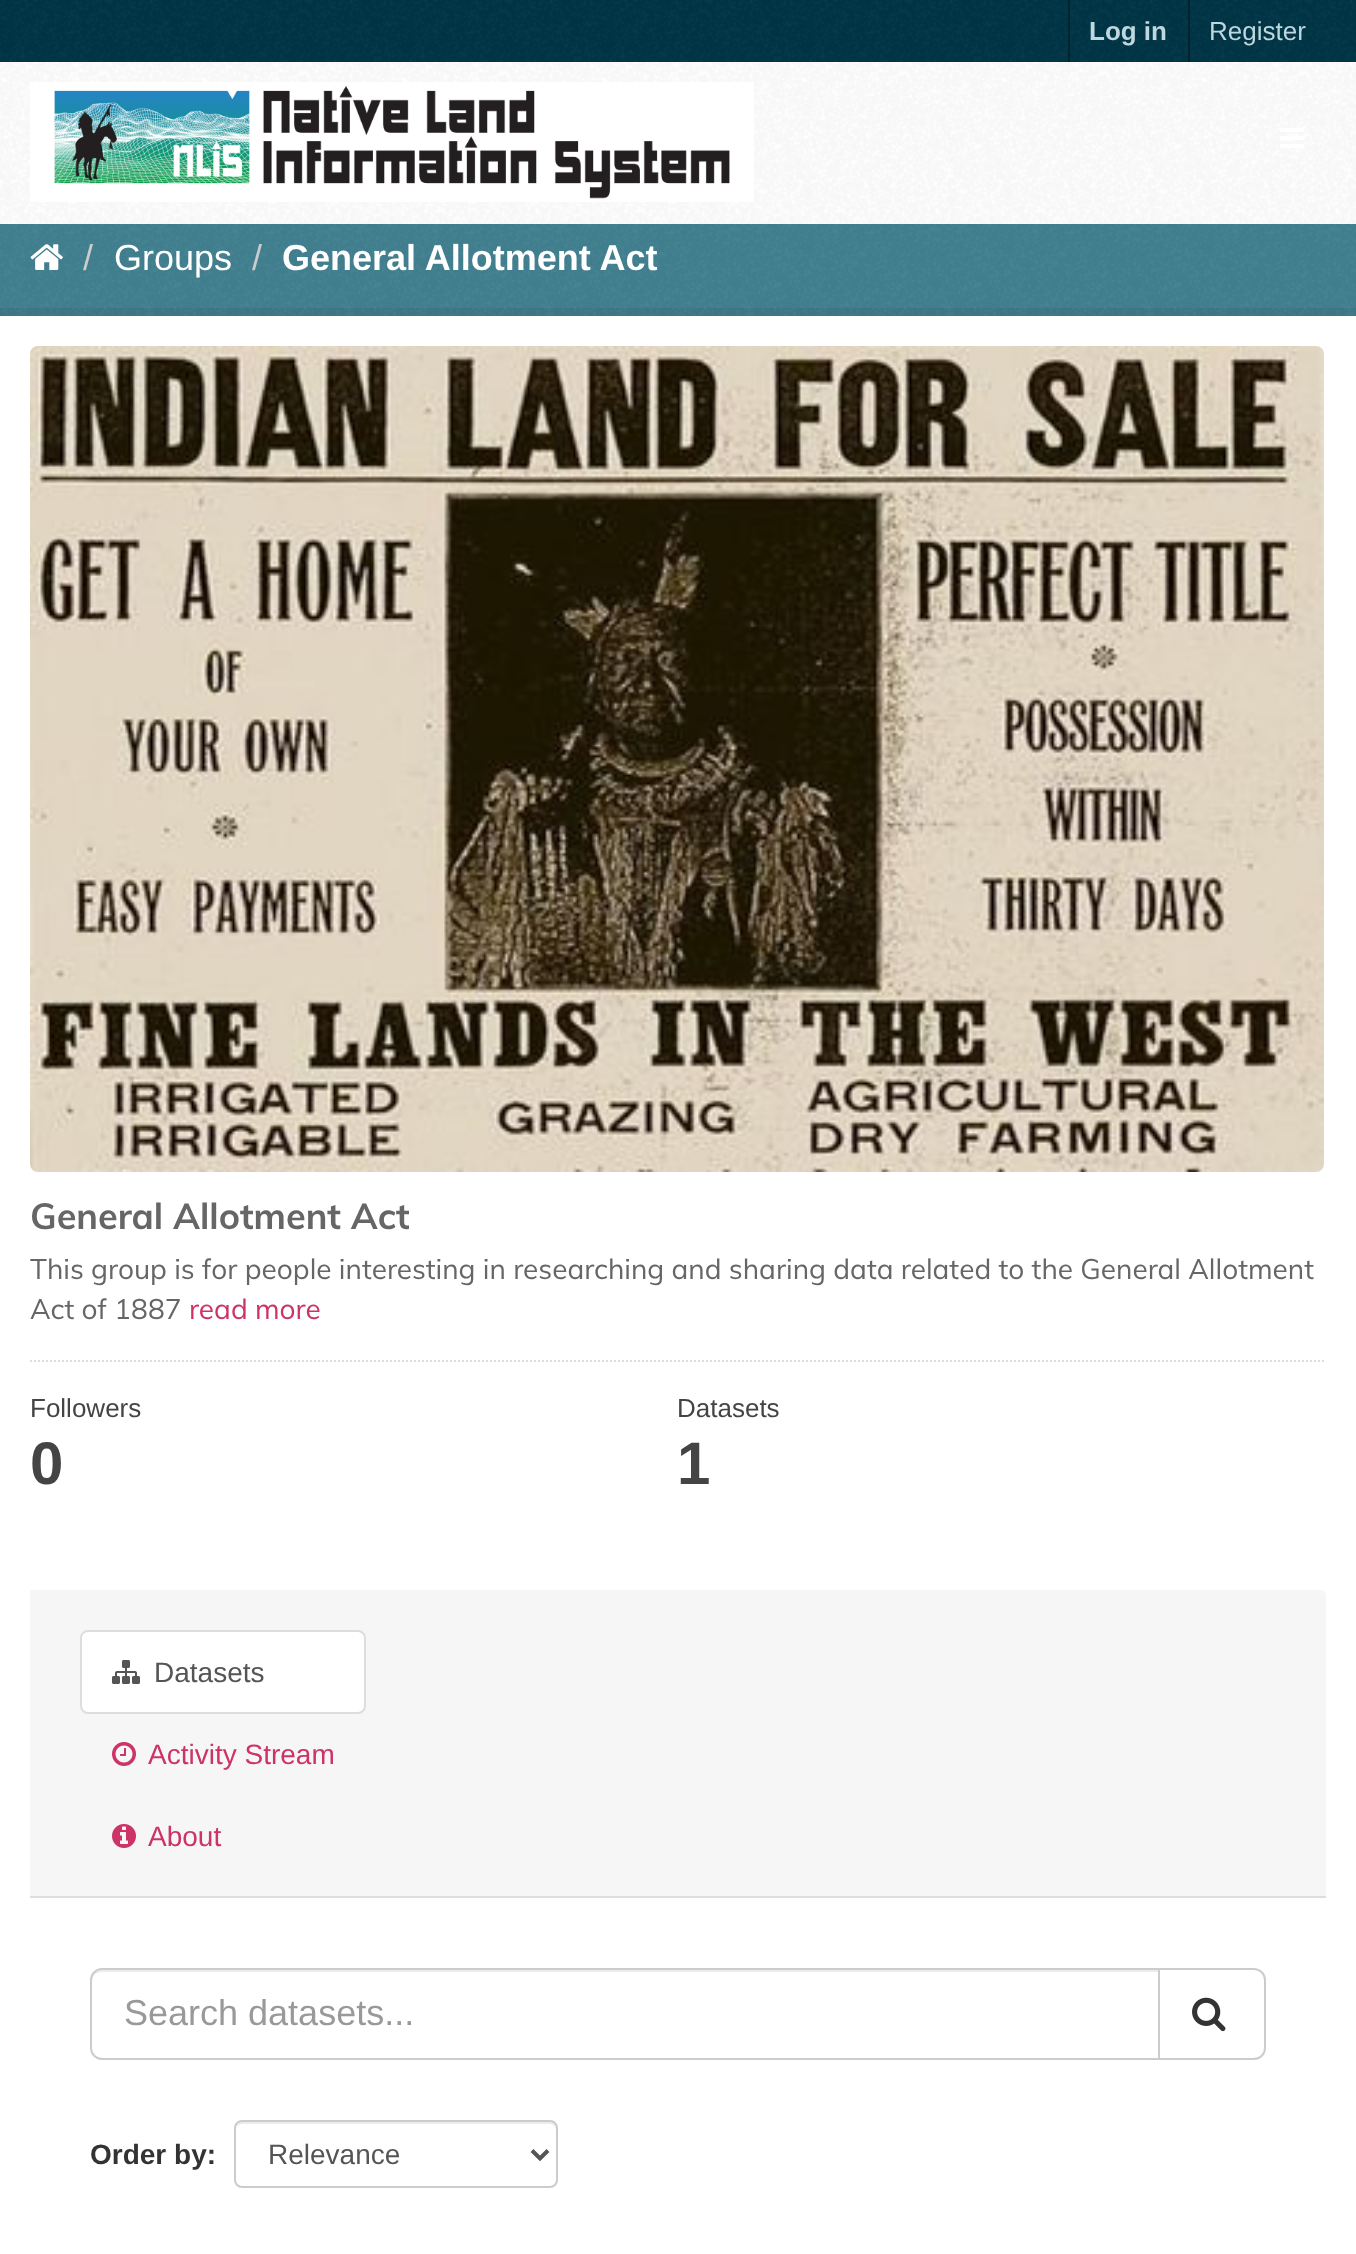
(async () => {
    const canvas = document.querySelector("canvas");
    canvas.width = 1356;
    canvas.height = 2254;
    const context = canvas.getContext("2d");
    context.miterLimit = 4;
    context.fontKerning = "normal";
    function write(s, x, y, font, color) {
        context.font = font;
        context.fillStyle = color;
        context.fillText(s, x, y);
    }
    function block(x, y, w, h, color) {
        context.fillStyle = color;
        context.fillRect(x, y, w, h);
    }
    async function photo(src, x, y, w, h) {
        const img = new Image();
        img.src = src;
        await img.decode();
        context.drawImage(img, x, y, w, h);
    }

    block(0, 0, 1356, 2254, "rgb(67, 130, 146)");
    await photo("media/1.png", 0, 224, 1356, 92);
    block(0, 0, 1356, 62, "rgb(0, 54, 71)");
    await photo("media/2.png", 0, 0, 1356, 62);
    block(1068, 0, 2, 62, "rgb(0, 35, 46)");
    write("Log in", 1089, 40, "bold 26px Liberation Sans", "rgb(191, 215, 222)");
    block(1188, 0, 2, 62, "rgb(0, 35, 46)");
    write("Register", 1209, 40, "26px Liberation Sans", "rgb(191, 215, 222)");
    block(0, 62, 1356, 162, "rgb(255, 255, 255)");
    await photo("media/3.png", 0, 62, 1356, 162);
    await photo("media/4.png", 30, 82, 724, 120);
    await photo("media/5.png", 1280, 128, 24, 20);
    await photo("media/6.png", 30, 244, 33, 26);
    write("/", 83, 270, "36px Liberation Sans", "rgb(204, 204, 204)");
    write("Groups", 114, 270, "36px Liberation Sans", "rgb(255, 255, 255)");
    write("/", 252, 270, "36px Liberation Sans", "rgb(204, 204, 204)");
    write("General Allotment Act", 282, 270, "bold 36px Liberation Sans", "rgb(255, 255, 255)");
    context.strokeStyle = "rgba(0, 0, 0, 0.05)";
    context.lineWidth = 8;
    context.strokeRect(-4, 312, 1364, 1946);
    block(0, 316, 1356, 1938, "rgb(255, 255, 255)");
    await photo("media/7.png", 30, 346, 1294, 826);
    write("General Allotment Act", 30, 1229, "bold 36px Muli", "rgb(102, 102, 102)");
    write("This group is for people interesting in researching and sharing data related to the General Allotment", 30, 1279, "28px Muli", "rgb(102, 102, 102)");
    write("Act of 1887", 30, 1319, "28px Muli", "rgb(102, 102, 102)");
    write("read more", 189, 1319, "28px Muli", "rgb(204, 51, 102)");
    context.beginPath();
    context.moveTo(30, 1361);
    context.lineTo(1324, 1361);
    context.strokeStyle = "rgb(221, 221, 221)";
    context.lineWidth = 2;
    context.setLineDash([2, 2]);
    context.stroke();
    write("Followers", 30, 1417, "26px Liberation Sans", "rgb(68, 68, 68)");
    write("0", 30, 1484, "bold 60px Liberation Sans", "rgb(68, 68, 68)");
    write("Datasets", 677, 1417, "26px Liberation Sans", "rgb(68, 68, 68)");
    write("1", 677, 1484, "bold 60px Liberation Sans", "rgb(68, 68, 68)");
    context.fillStyle = "rgb(246, 246, 246)";
    context.beginPath();
    context.roundRect(30, 1590, 1296, 308, [0, 6, 0, 0]);
    context.fill();
    block(30, 1896, 1296, 2, "rgb(221, 221, 221)");
    context.fillStyle = "rgb(255, 255, 255)";
    context.beginPath();
    context.roundRect(81, 1631, 284, 82, 7);
    context.fill();
    context.setLineDash([]);
    context.stroke();
    await photo("media/8.png", 112, 1660, 28, 24);
    write("Datasets", 154, 1682, "28px Liberation Sans", "rgb(85, 85, 85)");
    await photo("media/9.png", 112, 1742, 24, 24);
    write("Activity Stream", 148, 1764, "28px Liberation Sans", "rgb(204, 51, 102)");
    await photo("media/10.png", 112, 1824, 24, 24);
    write("About", 148, 1846, "28px Liberation Sans", "rgb(204, 51, 102)");
    context.fillStyle = "rgb(236, 236, 236)";
    context.beginPath();
    context.moveTo(102, 1972);
    context.lineTo(1158, 1972);
    context.lineTo(1158, 1970);
    context.lineTo(102, 1970);
    context.bezierCurveTo(95, 1970, 92, 1976, 92, 1982);
    context.bezierCurveTo(92, 1976, 96, 1972, 102, 1972);
    context.closePath();
    context.fill();
    context.beginPath();
    context.roundRect(91, 1969, 1068, 90, [11, 0, 0, 11]);
    context.strokeStyle = "rgb(204, 204, 204)";
    context.stroke();
    write("Search datasets...", 124, 2025, "36px Liberation Sans", "rgb(153, 153, 153)");
    context.fillStyle = "rgb(255, 255, 255)";
    context.beginPath();
    context.roundRect(1159, 1969, 106, 90, [0, 11, 11, 0]);
    context.fill();
    context.stroke();
    await photo("media/11.png", 1192, 1997, 34, 35);
    write("Order by:", 90, 2164, "bold 28px Liberation Sans", "rgb(51, 51, 51)");
    context.fillStyle = "rgb(236, 236, 236)";
    context.beginPath();
    context.moveTo(242, 2124);
    context.lineTo(550, 2124);
    context.bezierCurveTo(553, 2124, 556, 2127, 556, 2130);
    context.bezierCurveTo(556, 2126, 555, 2122, 550, 2122);
    context.lineTo(241, 2122);
    context.bezierCurveTo(237, 2123, 236, 2127, 236, 2130);
    context.bezierCurveTo(236, 2127, 239, 2124, 242, 2124);
    context.closePath();
    context.fill();
    context.beginPath();
    context.roundRect(235, 2121, 322, 66, 7);
    context.stroke();
    context.beginPath();
    context.moveTo(532, 2150.5);
    context.lineTo(540, 2158.5);
    context.lineTo(548, 2150.5);
    context.strokeStyle = "rgb(85, 85, 85)";
    context.lineWidth = 4;
    context.stroke();
    write("Relevance", 268, 2164, "28px Liberation Sans", "rgb(85, 85, 85)");
})();
